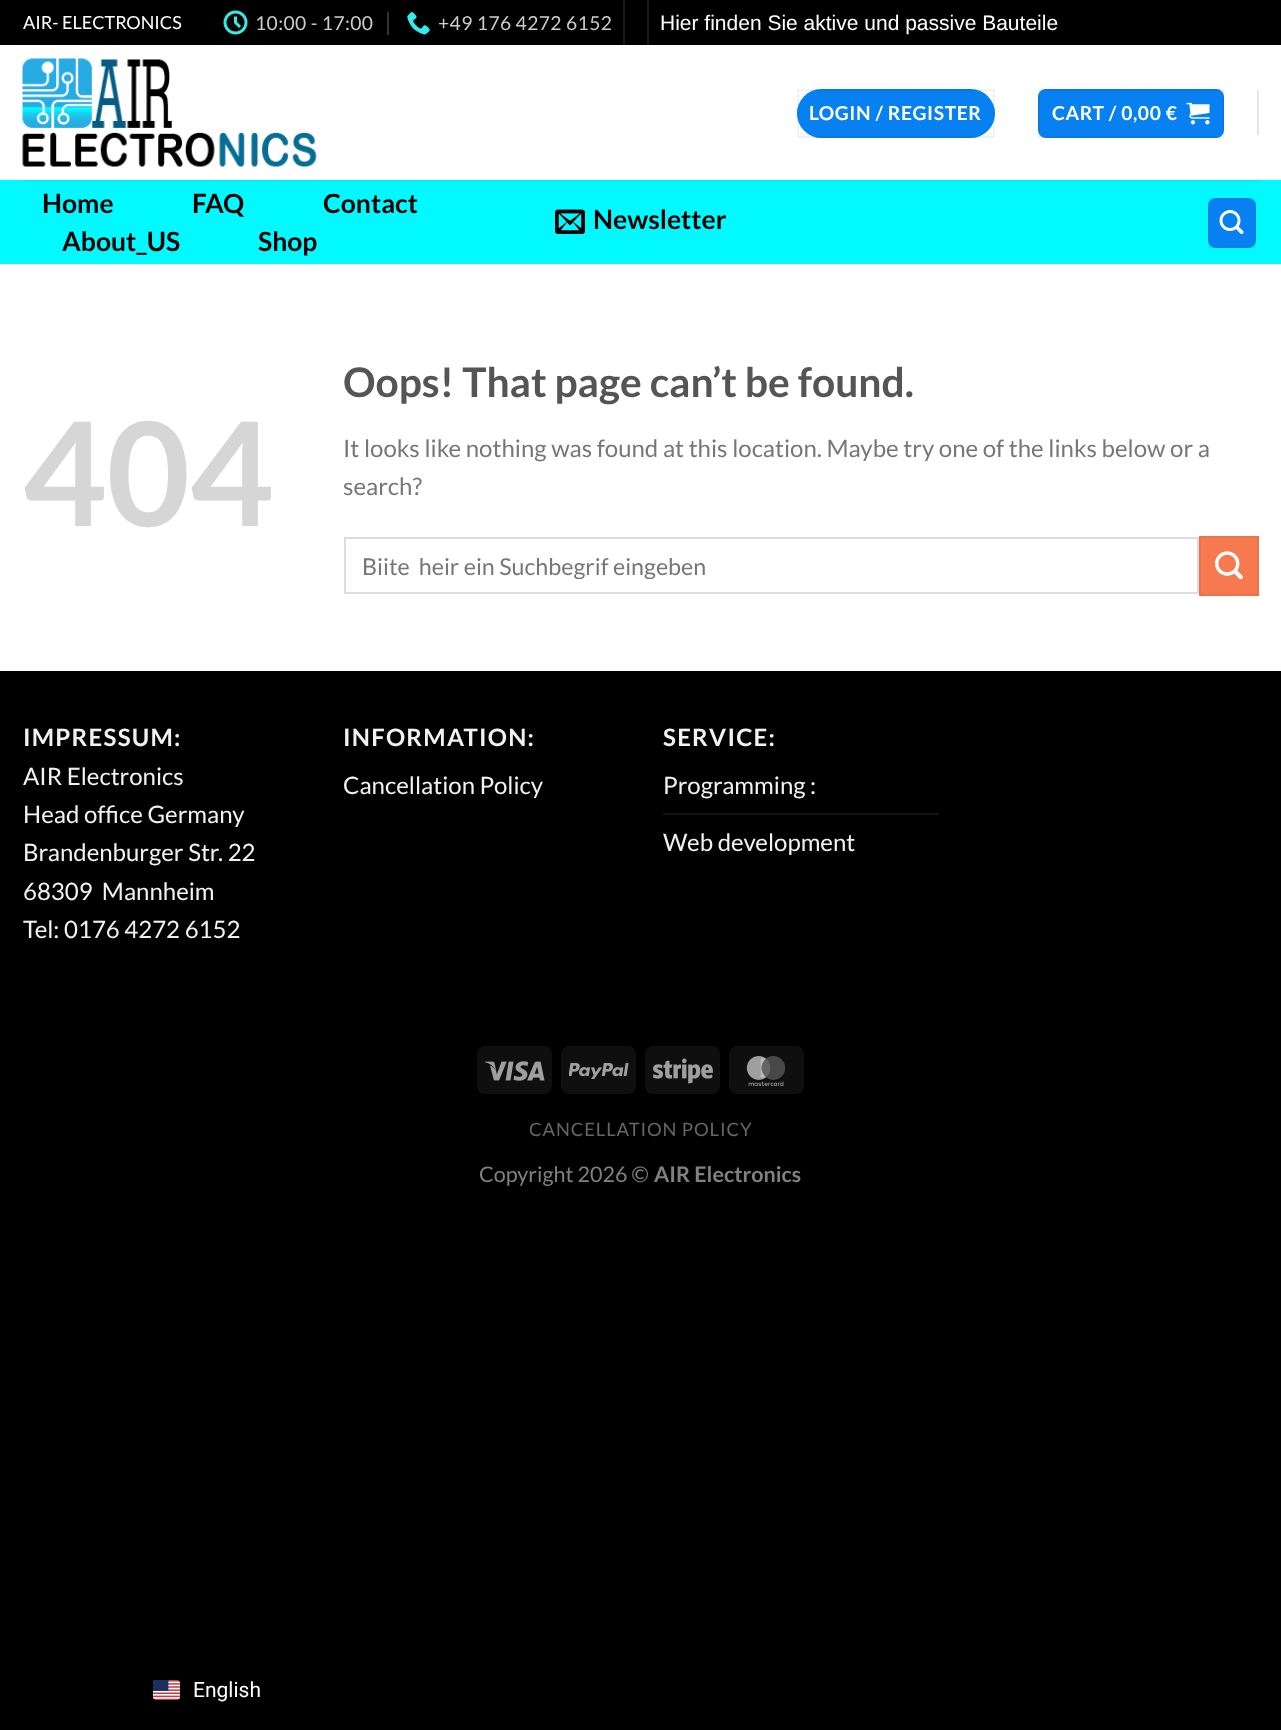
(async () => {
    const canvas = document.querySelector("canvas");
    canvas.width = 1281;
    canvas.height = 1730;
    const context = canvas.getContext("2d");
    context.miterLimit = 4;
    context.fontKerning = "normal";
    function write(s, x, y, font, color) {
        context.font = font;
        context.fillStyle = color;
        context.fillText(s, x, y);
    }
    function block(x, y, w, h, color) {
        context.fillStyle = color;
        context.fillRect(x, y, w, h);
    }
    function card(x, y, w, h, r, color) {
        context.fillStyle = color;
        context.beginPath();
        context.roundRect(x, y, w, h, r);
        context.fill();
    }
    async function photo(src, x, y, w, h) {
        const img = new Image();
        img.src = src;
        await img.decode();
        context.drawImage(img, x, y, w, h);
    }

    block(0, 0, 1281, 1730, "rgb(0, 0, 0)");
    block(0, 45, 1281, 626, "rgb(255, 255, 255)");
    write("AIR- ELECTRONICS", 23, 29, "18px Lato", "rgb(255, 255, 255)");
    await photo("media/1.png", 223, 10, 25, 25);
    context.letterSpacing = "0.4px";
    write("10:00 - 17:00", 255, 30, "19.25px Lato", "rgb(204, 204, 204)");
    block(387, 12, 2, 23, "rgb(51, 51, 51)");
    await photo("media/2.png", 407, 12, 23, 23);
    write("+49 176 4272 6152", 438, 30, "19.25px Lato", "rgb(204, 204, 204)");
    block(623, 0, 2, 45, "rgb(26, 26, 26)");
    block(647, 0, 2, 45, "rgb(26, 26, 26)");
    context.letterSpacing = "0px";
    write("Hier finden Sie aktive und passive Bauteile", 660, 30, "21px Liberation Sans", "rgb(255, 255, 255)");
    await photo("media/3.png", 22, 58, 295, 109);
    card(797, 89, 198, 49, 24.5, "rgb(7, 128, 242)");
    context.strokeStyle = "rgba(0, 0, 0, 0.05)";
    context.lineWidth = 2;
    context.strokeRect(798, 90, 196, 47);
    context.letterSpacing = "0.6px";
    write("LOGIN / REGISTER", 809, 120, "bold 19.25px Lato", "rgb(255, 255, 255)");
    card(1038, 89, 186, 49, 8, "rgb(7, 128, 242)");
    context.strokeRect(1039, 90, 184, 47);
    write("CART / 0,00 €", 1052, 120, "bold 19.25px Lato", "rgb(255, 255, 255)");
    await photo("media/4.png", 1186, 102, 24, 23);
    block(1257, 90, 2, 45, "rgb(230, 230, 230)");
    block(0, 180, 1281, 84, "rgb(0, 250, 255)");
    block(23, 180, 1236, 2, "rgb(12, 237, 241)");
    context.letterSpacing = "0px";
    write("Home", 42, 213, "bold 26.5px Lato", "rgb(0, 0, 0)");
    write("FAQ", 192, 213, "bold 26.5px Lato", "rgb(0, 0, 0)");
    write("Contact", 323, 213, "bold 26.5px Lato", "rgb(0, 0, 0)");
    write("About_US", 62, 251, "bold 26.5px Lato", "rgb(0, 0, 0)");
    write("Shop", 258, 251, "bold 26.5px Lato", "rgb(0, 0, 0)");
    await photo("media/5.png", 555, 209, 30, 25);
    write("Newsletter", 593, 229, "bold 26.5px Lato", "rgb(0, 0, 0)");
    card(1208, 198, 48, 50, 8, "rgb(7, 128, 242)");
    context.strokeRect(1209, 199, 46, 48);
    await photo("media/6.png", 1219, 210, 25, 24);
    write("404", 23, 526, "bold 144px Lato", "rgb(214, 214, 214)");
    write("Oops! That page can’t be found.", 343, 397, "bold 40.75px Lato", "rgb(85, 85, 85)");
    write("It looks like nothing was found at this location. Maybe try one of the links below or a", 343, 457, "24px Lato", "rgb(119, 119, 119)");
    write("search?", 343, 495, "24px Lato", "rgb(119, 119, 119)");
    context.strokeStyle = "rgb(221, 221, 221)";
    context.strokeRect(345, 538, 853, 55);
    context.save();
    context.beginPath();
    context.rect(362, 552, 813, 27);
    context.clip();
    write("Biite  heir ein Suchbegrif eingeben", 362, 575, "23.25px Lato", "rgb(119, 119, 119)");
    context.restore();
    context.fillStyle = "rgb(246, 121, 79)";
    context.beginPath();
    context.rect(1200, 537, 58, 58);
    context.fill();
    context.strokeStyle = "rgb(234, 115, 75)";
    context.stroke();
    await photo("media/7.png", 1215, 551, 28, 29);
    context.letterSpacing = "1.25px";
    write("IMPRESSUM:", 23, 746, "bold 24px Lato", "rgb(241, 241, 241)");
    context.letterSpacing = "0px";
    write("AIR Electronics", 23, 785, "24px Lato", "rgb(241, 241, 241)");
    write("Head office Germany", 23, 823, "24px Lato", "rgb(241, 241, 241)");
    write("Brandenburger Str. 22", 23, 861, "24px Lato", "rgb(241, 241, 241)");
    write("68309  Mannheim", 23, 900, "24px Lato", "rgb(241, 241, 241)");
    write("Tel: 0176 4272 6152", 23, 938, "24px Lato", "rgb(241, 241, 241)");
    context.letterSpacing = "1.25px";
    write("INFORMATION:", 343, 746, "bold 24px Lato", "rgb(241, 241, 241)");
    context.letterSpacing = "0px";
    write("Cancellation Policy", 343, 794, "24px Lato", "rgb(241, 241, 241)");
    context.letterSpacing = "1.25px";
    write("SERVICE:", 663, 746, "bold 24px Lato", "rgb(241, 241, 241)");
    context.letterSpacing = "0px";
    write("Programming :", 663, 794, "24px Lato", "rgb(241, 241, 241)");
    block(663, 813, 276, 2, "rgb(20, 20, 20)");
    write("Web development", 663, 851, "24px Lato", "rgb(241, 241, 241)");
    card(477, 1046, 75, 48, 8, "rgb(15, 15, 15)");
    await photo("media/8.png", 485, 1061, 60, 20);
    card(561, 1046, 75, 48, 8, "rgb(15, 15, 15)");
    await photo("media/9.png", 569, 1063, 60, 16);
    card(645, 1046, 75, 48, 8, "rgb(15, 15, 15)");
    await photo("media/10.png", 653, 1058, 60, 26);
    card(729, 1046, 75, 48, 8, "rgb(15, 15, 15)");
    await photo("media/11.png", 746, 1056, 40, 30);
    context.letterSpacing = "0.9px";
    write("CANCELLATION POLICY", 529, 1136, "18.4px Lato", "rgb(102, 102, 102)");
    context.letterSpacing = "0px";
    write("Copyright 2026 ©", 479, 1182, "21.5px Lato", "rgb(128, 128, 128)");
    write("AIR Electronics", 654, 1182, "bold 21.5px Lato", "rgb(128, 128, 128)");
    await photo("media/12.png", 153, 1680, 27, 20);
    write("English", 193, 1697, "21px Roboto", "rgb(255, 255, 255)");
})();
